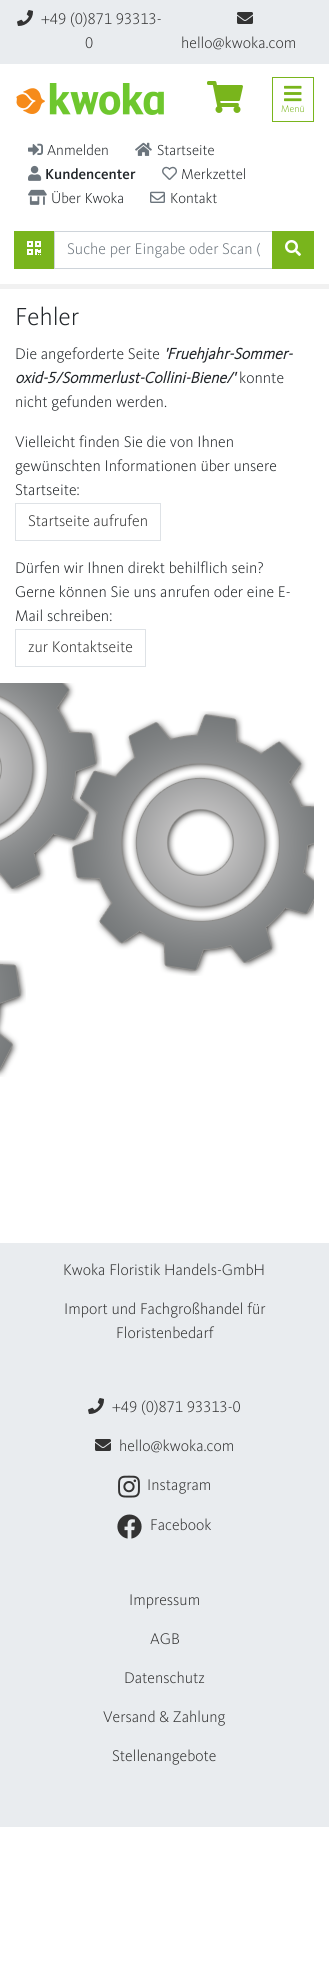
import math
import cairo



def draw_image(context, path, x, y, w, h):
    context.save()
    context.set_source_surface(cairo.ImageSurface.create_from_png(path), x, y)
    context.rectangle(x, y, w, h)
    context.fill()
    context.restore()


def draw(context):
    context.set_source_rgb(1, 1, 1)
    context.paint()
    context.set_source_rgb(233 / 255, 236 / 255, 239 / 255)
    context.rectangle(0, 0, 329, 64)
    context.fill()
    draw_image(context, "images/1.png", 17, 10, 16, 16)
    draw_image(context, "images/2.png", 237, 12, 16, 12)
    draw_image(context, "images/3.png", 16, 83, 148, 32)
    draw_image(context, "images/4.png", 207, 81, 36, 32)
    context.rectangle(272.5, 77.5, 41, 44)
    context.set_source_rgb(121 / 255, 181 / 255, 28 / 255)
    context.set_line_width(1)
    context.stroke()
    draw_image(context, "images/5.png", 284, 85, 18, 17)
    draw_image(context, "images/6.png", 28, 143, 15, 13)
    draw_image(context, "images/7.png", 135, 142, 17, 14)
    draw_image(context, "images/8.png", 28, 165, 14, 16)
    draw_image(context, "images/9.png", 162, 166, 15, 14)
    draw_image(context, "images/10.png", 28, 189, 19, 16)
    draw_image(context, "images/11.png", 150, 191, 15, 12)
    context.rectangle(14, 231, 40, 38)
    context.fill()
    draw_image(context, "images/12.png", 27, 241, 14, 14)
    context.rectangle(54.5, 231.5, 218, 37)
    context.set_source_rgb(206 / 255, 212 / 255, 218 / 255)
    context.stroke()
    context.set_source_rgb(121 / 255, 181 / 255, 28 / 255)
    context.rectangle(272, 231, 42, 38)
    context.fill()
    draw_image(context, "images/13.png", 285, 240, 16, 16)
    context.set_source_rgb(241 / 255, 241 / 255, 241 / 255)
    context.rectangle(0, 284, 329, 5)
    context.fill()
    context.rectangle(15.5, 503.5, 145, 37)
    context.set_source_rgb(222 / 255, 226 / 255, 230 / 255)
    context.stroke()
    context.rectangle(15.5, 629.5, 130, 37)
    context.stroke()
    draw_image(context, "images/14.png", 0, 683, 102, 211)
    draw_image(context, "images/15.png", 68, 711, 246, 265)
    draw_image(context, "images/16.png", 0, 960, 26, 117)
    context.set_source_rgb(233 / 255, 236 / 255, 239 / 255)
    context.rectangle(0, 1243, 329, 584)
    context.fill()
    draw_image(context, "images/1.png", 88, 1398, 16, 16)
    draw_image(context, "images/2.png", 95, 1439, 16, 12)
    draw_image(context, "images/17.png", 118, 1475, 22, 23)
    draw_image(context, "images/18.png", 117, 1514, 25, 25)
    context.select_font_face("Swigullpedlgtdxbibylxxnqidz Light")
    context.set_font_size(16)
    context.set_source_rgb(51 / 255, 51 / 255, 51 / 255)
    context.move_to(41, 24)
    context.show_text("+49 (0)871 93313-")
    context.move_to(85, 48)
    context.show_text("0")
    context.move_to(181, 48)
    context.show_text("hello@kwoka.com")
    context.set_font_size(10)
    context.set_source_rgb(121 / 255, 181 / 255, 28 / 255)
    context.move_to(281, 112)
    context.show_text("Menü")
    context.set_font_size(15)
    context.set_source_rgb(33 / 255, 37 / 255, 41 / 255)
    context.move_to(47, 155)
    context.show_text("Anmelden")
    context.move_to(157, 155)
    context.show_text("Startseite")
    context.select_font_face("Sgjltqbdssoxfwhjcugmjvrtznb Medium")
    context.move_to(45, 179)
    context.show_text("Kundencenter")
    context.select_font_face("Swigullpedlgtdxbibylxxnqidz Light")
    context.move_to(181, 179)
    context.show_text("Merkzettel")
    context.move_to(51, 203)
    context.show_text("Über Kwoka")
    context.move_to(170, 203)
    context.show_text("Kontakt")
    context.save()
    context.rectangle(67, 242, 193, 16)
    context.clip()
    context.set_font_size(16)
    context.set_source_rgb(108 / 255, 117 / 255, 125 / 255)
    context.move_to(67, 254)
    context.show_text("Suche per Eingabe oder Scan (")
    context.restore()
    context.set_font_size(25.5)
    context.move_to(15, 325)
    context.show_text("Fehler")
    context.set_font_size(16)
    context.move_to(15, 359)
    context.show_text("Die angeforderte Seite")
    context.select_font_face("Swigullpedlgtdxbibylxxnqidz", cairo.FontSlant.ITALIC, cairo.FontWeight.BOLD)
    context.move_to(164, 359)
    context.show_text("'Fruehjahr-Sommer-")
    context.move_to(15, 383)
    context.show_text("oxid-5/Sommerlust-Collini-Biene/'")
    context.select_font_face("Swigullpedlgtdxbibylxxnqidz Light")
    context.move_to(239, 383)
    context.show_text("konnte")
    context.move_to(15, 407)
    context.show_text("nicht gefunden werden.")
    context.move_to(15, 447)
    context.show_text("Vielleicht finden Sie die von Ihnen")
    context.move_to(15, 471)
    context.show_text("gewünschten Informationen über unsere")
    context.move_to(15, 495)
    context.show_text("Startseite:")
    context.set_source_rgb(51 / 255, 51 / 255, 51 / 255)
    context.move_to(28, 526)
    context.show_text("Startseite aufrufen")
    context.set_source_rgb(33 / 255, 37 / 255, 41 / 255)
    context.move_to(15, 573)
    context.show_text("Dürfen wir Ihnen direkt behilflich sein?")
    context.move_to(15, 597)
    context.show_text("Gerne können Sie uns anrufen oder eine E-")
    context.move_to(15, 621)
    context.show_text("Mail schreiben:")
    context.set_source_rgb(51 / 255, 51 / 255, 51 / 255)
    context.move_to(28, 652)
    context.show_text("zur Kontaktseite")
    context.move_to(63, 1275)
    context.show_text("Kwoka Floristik Handels-GmbH")
    context.move_to(64, 1314)
    context.show_text("Import und Fachgroßhandel für")
    context.move_to(116, 1338)
    context.show_text("Floristenbedarf")
    context.move_to(112, 1412)
    context.show_text("+49 (0)871 93313-0")
    context.move_to(119, 1451)
    context.show_text("hello@kwoka.com")
    context.move_to(147, 1490)
    context.show_text("Instagram")
    context.move_to(150, 1530)
    context.show_text("Facebook")
    context.move_to(129, 1605)
    context.show_text("Impressum")
    context.move_to(150, 1644)
    context.show_text("AGB")
    context.move_to(124, 1683)
    context.show_text("Datenschutz")
    context.move_to(103, 1722)
    context.show_text("Versand & Zahlung")
    context.move_to(112, 1761)
    context.show_text("Stellenangebote")


surface = cairo.ImageSurface(cairo.Format.RGB24, 329, 1962)
context = cairo.Context(surface)
options = cairo.FontOptions()
options.set_hint_metrics(cairo.HintMetrics.OFF)
options.set_hint_style(cairo.HintStyle.NONE)
context.set_font_options(options)
context.set_miter_limit(4)
draw(context)
surface.write_to_png("out.png")
